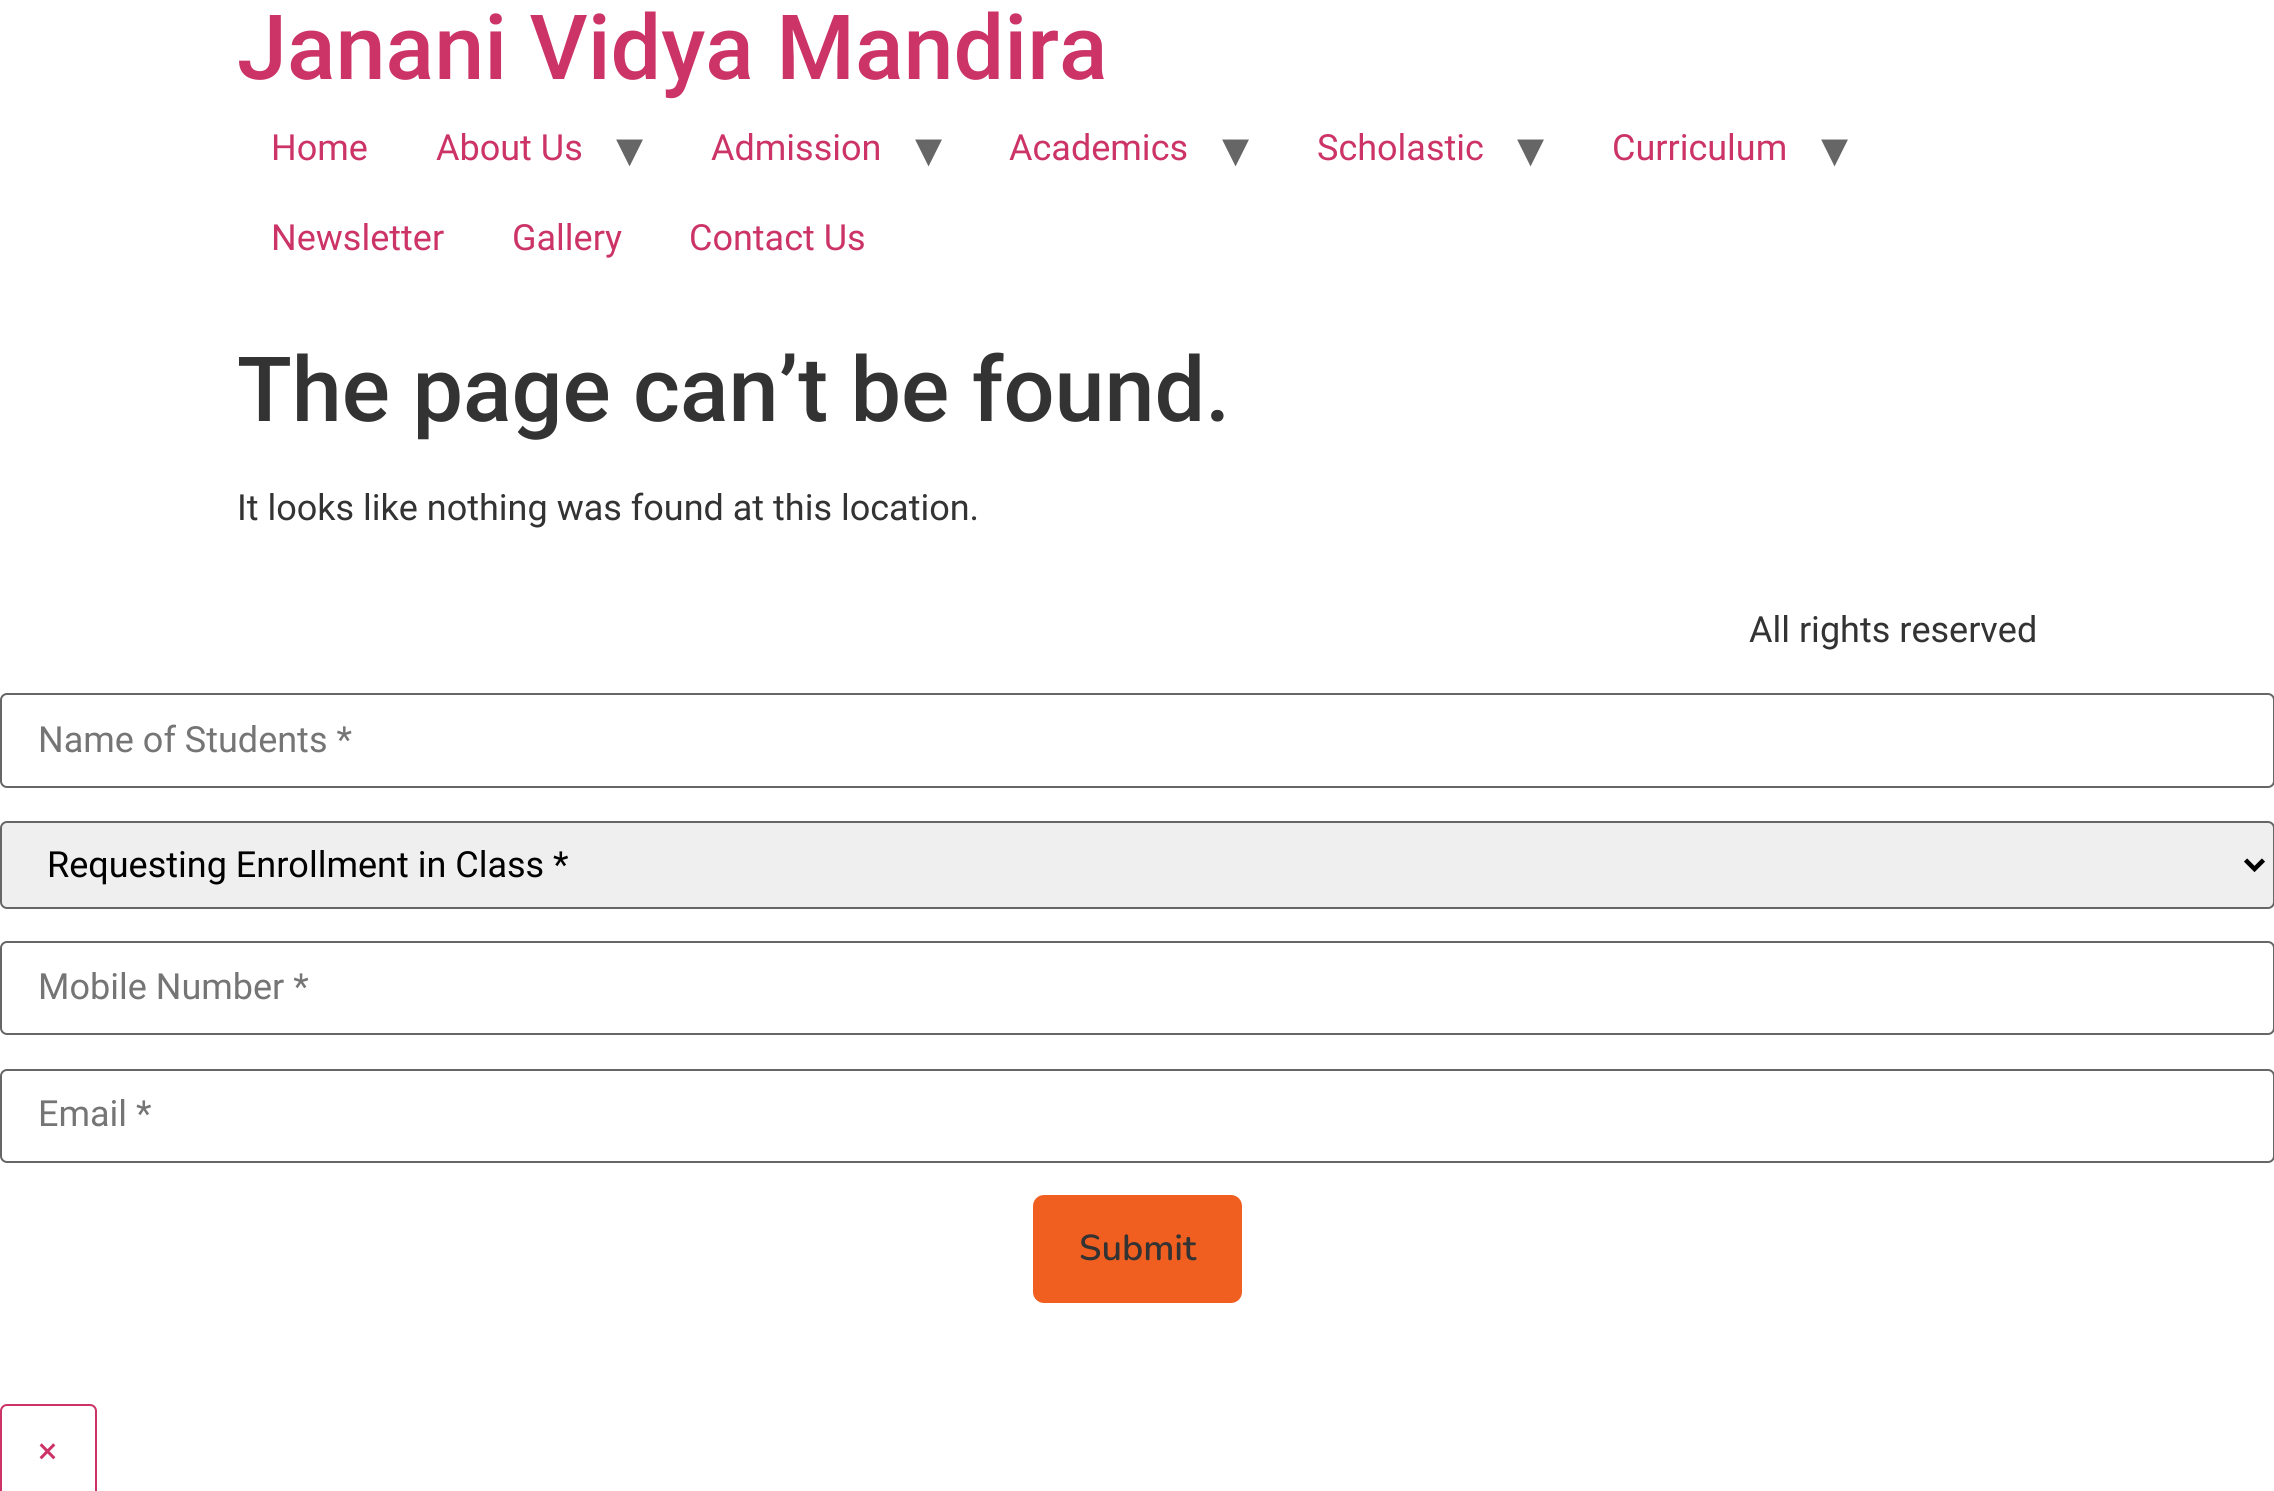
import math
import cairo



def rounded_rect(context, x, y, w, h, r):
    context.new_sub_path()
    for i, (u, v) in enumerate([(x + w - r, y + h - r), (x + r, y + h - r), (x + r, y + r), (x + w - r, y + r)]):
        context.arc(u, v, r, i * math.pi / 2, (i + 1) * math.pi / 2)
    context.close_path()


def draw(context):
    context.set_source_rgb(1, 1, 1)
    context.paint()
    rounded_rect(context, 1, 694, 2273, 93, 6)
    context.set_source_rgb(102 / 255, 102 / 255, 102 / 255)
    context.stroke()
    context.set_source_rgb(239 / 255, 239 / 255, 239 / 255)
    rounded_rect(context, 1, 822, 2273, 86, 6)
    context.fill_preserve()
    context.set_source_rgb(102 / 255, 102 / 255, 102 / 255)
    context.stroke()
    context.new_path()
    context.move_to(2245.5, 860)
    context.line_to(2254.5, 869)
    context.line_to(2263.5, 860)
    context.set_source_rgb(0, 0, 0)
    context.set_line_width(4.5)
    context.stroke()
    rounded_rect(context, 1, 942, 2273, 92, 6)
    context.set_source_rgb(102 / 255, 102 / 255, 102 / 255)
    context.set_line_width(2)
    context.stroke()
    rounded_rect(context, 1, 1070, 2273, 92, 6)
    context.stroke()
    context.set_source_rgb(241 / 255, 95 / 255, 32 / 255)
    rounded_rect(context, 1033, 1195, 209, 108, 11)
    context.fill()
    rounded_rect(context, 1, 1405, 95, 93, 6)
    context.set_source_rgb(204 / 255, 51 / 255, 102 / 255)
    context.stroke()
    context.select_font_face("Roboto Medium")
    context.set_font_size(90)
    context.move_to(237, 79)
    context.show_text("Janani Vidya Mandira")
    context.select_font_face("Roboto")
    context.set_font_size(36)
    context.move_to(271, 160)
    context.show_text("Home")
    context.move_to(436, 160)
    context.show_text("About Us")
    context.select_font_face("DejaVu Sans")
    context.set_font_size(54)
    context.set_source_rgb(102 / 255, 102 / 255, 102 / 255)
    context.move_to(616, 167)
    context.show_text("▾")
    context.select_font_face("Roboto")
    context.set_font_size(36)
    context.set_source_rgb(204 / 255, 51 / 255, 102 / 255)
    context.move_to(711, 160)
    context.show_text("Admission")
    context.select_font_face("DejaVu Sans")
    context.set_font_size(54)
    context.set_source_rgb(102 / 255, 102 / 255, 102 / 255)
    context.move_to(915, 167)
    context.show_text("▾")
    context.select_font_face("Roboto")
    context.set_font_size(36)
    context.set_source_rgb(204 / 255, 51 / 255, 102 / 255)
    context.move_to(1009, 160)
    context.show_text("Academics")
    context.select_font_face("DejaVu Sans")
    context.set_font_size(54)
    context.set_source_rgb(102 / 255, 102 / 255, 102 / 255)
    context.move_to(1222, 167)
    context.show_text("▾")
    context.select_font_face("Roboto")
    context.set_font_size(36)
    context.set_source_rgb(204 / 255, 51 / 255, 102 / 255)
    context.move_to(1317, 160)
    context.show_text("Scholastic")
    context.select_font_face("DejaVu Sans")
    context.set_font_size(54)
    context.set_source_rgb(102 / 255, 102 / 255, 102 / 255)
    context.move_to(1517, 167)
    context.show_text("▾")
    context.select_font_face("Roboto")
    context.set_font_size(36)
    context.set_source_rgb(204 / 255, 51 / 255, 102 / 255)
    context.move_to(1612, 160)
    context.show_text("Curriculum")
    context.select_font_face("DejaVu Sans")
    context.set_font_size(54)
    context.set_source_rgb(102 / 255, 102 / 255, 102 / 255)
    context.move_to(1821, 167)
    context.show_text("▾")
    context.select_font_face("Roboto")
    context.set_font_size(36)
    context.set_source_rgb(204 / 255, 51 / 255, 102 / 255)
    context.move_to(271, 250)
    context.show_text("Newsletter")
    context.move_to(512, 250)
    context.show_text("Gallery")
    context.move_to(689, 250)
    context.show_text("Contact Us")
    context.select_font_face("Roboto Medium")
    context.set_font_size(90)
    context.set_source_rgb(51 / 255, 51 / 255, 51 / 255)
    context.move_to(237, 421)
    context.show_text("The page can’t be found.")
    context.select_font_face("Roboto")
    context.set_font_size(36)
    context.move_to(237, 520)
    context.show_text("It looks like nothing was found at this location.")
    context.move_to(1749, 642)
    context.show_text("All rights reserved")
    context.set_source_rgb(117 / 255, 117 / 255, 117 / 255)
    context.move_to(38, 752)
    context.show_text("Name of Students *")
    context.set_source_rgb(0, 0, 0)
    context.move_to(47, 877)
    context.show_text("Requesting Enrollment in Class *")
    context.set_source_rgb(117 / 255, 117 / 255, 117 / 255)
    context.move_to(38, 999)
    context.show_text("Mobile Number *")
    context.move_to(38, 1126)
    context.show_text("Email *")
    context.select_font_face("Nunito SemiBold")
    context.set_source_rgb(51 / 255, 51 / 255, 51 / 255)
    context.move_to(1079, 1260)
    context.show_text("Submit")
    context.select_font_face("Roboto")
    context.set_source_rgb(204 / 255, 51 / 255, 102 / 255)
    context.move_to(38, 1463)
    context.show_text("×")


surface = cairo.ImageSurface(cairo.Format.RGB24, 2274, 1491)
context = cairo.Context(surface)
options = cairo.FontOptions()
options.set_hint_metrics(cairo.HintMetrics.OFF)
options.set_hint_style(cairo.HintStyle.NONE)
context.set_font_options(options)
context.set_miter_limit(4)
draw(context)
surface.write_to_png("out.png")
